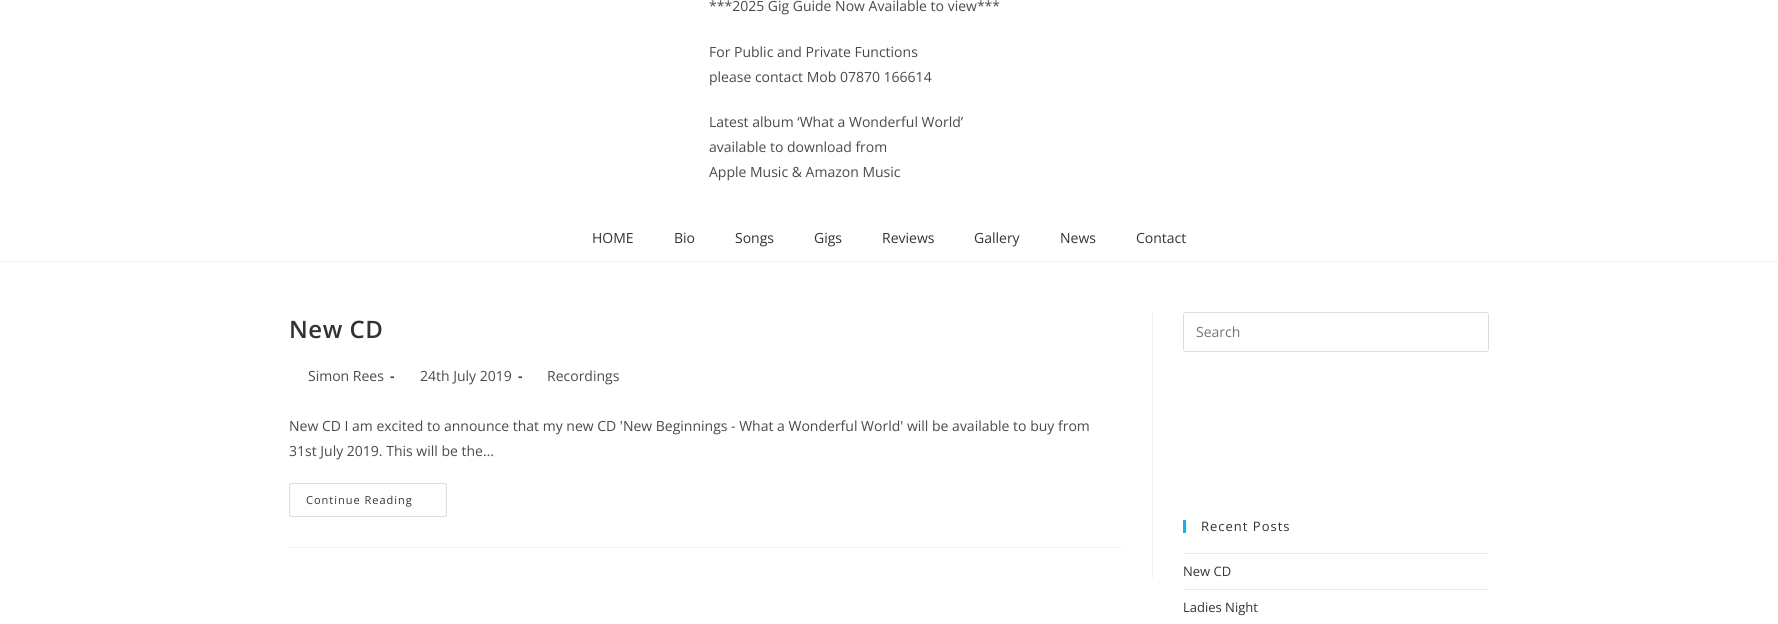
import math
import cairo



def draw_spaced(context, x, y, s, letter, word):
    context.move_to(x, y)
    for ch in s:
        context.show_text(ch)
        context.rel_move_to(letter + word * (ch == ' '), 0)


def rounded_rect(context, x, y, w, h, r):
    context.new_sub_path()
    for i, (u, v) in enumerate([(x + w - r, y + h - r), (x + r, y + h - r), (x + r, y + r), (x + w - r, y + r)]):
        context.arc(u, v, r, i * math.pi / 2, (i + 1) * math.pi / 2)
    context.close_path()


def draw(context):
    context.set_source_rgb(1, 1, 1)
    context.paint()
    context.set_source_rgb(241 / 255, 241 / 255, 241 / 255)
    context.rectangle(0, 261, 1778, 1)
    context.fill()
    context.rectangle(1152, 312, 1, 266)
    context.fill()
    context.rectangle(289, 547, 833, 1)
    context.fill()
    rounded_rect(context, 289.5, 483.5, 157, 33, 1.5)
    context.set_source_rgb(221 / 255, 221 / 255, 221 / 255)
    context.set_line_width(1)
    context.stroke()
    rounded_rect(context, 1183.5, 312.5, 305, 39, 2.5)
    context.stroke()
    context.set_source_rgb(19 / 255, 175 / 255, 240 / 255)
    context.rectangle(1183, 520, 3, 13)
    context.fill()
    context.set_source_rgb(233 / 255, 233 / 255, 233 / 255)
    context.rectangle(1183, 553, 306, 1)
    context.fill()
    context.rectangle(1183, 589, 306, 1)
    context.fill()
    context.select_font_face("Open Sans")
    context.set_font_size(14)
    context.set_source_rgb(74 / 255, 74 / 255, 74 / 255)
    context.move_to(709, 11)
    context.show_text("***2025 Gig Guide Now Available to view***")
    context.move_to(709, 57)
    context.show_text("For Public and Private Functions")
    context.move_to(709, 82)
    context.show_text("please contact Mob 07870 166614")
    context.move_to(709, 127)
    context.show_text("Latest album ‘What a Wonderful World’")
    context.move_to(709, 152)
    context.show_text("available to download from")
    context.move_to(709, 177)
    context.show_text("Apple Music & Amazon Music")
    context.set_source_rgb(51 / 255, 51 / 255, 51 / 255)
    context.move_to(592, 243)
    context.show_text("HOME")
    context.move_to(674, 243)
    context.show_text("Bio")
    context.move_to(735, 243)
    context.show_text("Songs")
    context.move_to(814, 243)
    context.show_text("Gigs")
    context.move_to(882, 243)
    context.show_text("Reviews")
    context.move_to(974, 243)
    context.show_text("Gallery")
    context.move_to(1060, 243)
    context.show_text("News")
    context.move_to(1136, 243)
    context.show_text("Contact")
    context.select_font_face("Open Sans SemiBold")
    context.set_font_size(24)
    draw_spaced(context, 289, 338, "New CD", 0.5, 0)
    context.select_font_face("Open Sans")
    context.set_font_size(14)
    context.set_source_rgb(74 / 255, 74 / 255, 74 / 255)
    context.move_to(308, 381)
    context.show_text("Simon Rees")
    context.select_font_face("Open Sans", cairo.FontSlant.NORMAL, cairo.FontWeight.BOLD)
    context.move_to(390, 381)
    context.show_text("-")
    context.select_font_face("Open Sans")
    context.move_to(420, 381)
    context.show_text("24th July 2019")
    context.select_font_face("Open Sans", cairo.FontSlant.NORMAL, cairo.FontWeight.BOLD)
    context.move_to(518, 381)
    context.show_text("-")
    context.select_font_face("Open Sans")
    context.move_to(547, 381)
    context.show_text("Recordings")
    context.move_to(289, 431)
    context.show_text("New CD I am excited to announce that my new CD 'New Beginnings - What a Wonderful World' will be available to buy from")
    context.move_to(289, 456)
    context.show_text("31st July 2019. This will be the…")
    context.set_font_size(11)
    context.set_source_rgb(51 / 255, 51 / 255, 51 / 255)
    draw_spaced(context, 306, 504, "Continue Reading", 1, 0)
    context.set_font_size(14)
    context.set_source_rgb(117 / 255, 117 / 255, 117 / 255)
    context.move_to(1196, 337)
    context.show_text("Search")
    context.set_font_size(13)
    context.set_source_rgb(51 / 255, 51 / 255, 51 / 255)
    draw_spaced(context, 1201, 531, "Recent Posts", 1, 0)
    context.move_to(1183, 576)
    context.show_text("New CD")
    context.move_to(1183, 612)
    context.show_text("Ladies Night")


surface = cairo.ImageSurface(cairo.Format.RGB24, 1778, 624)
context = cairo.Context(surface)
options = cairo.FontOptions()
options.set_hint_metrics(cairo.HintMetrics.OFF)
options.set_hint_style(cairo.HintStyle.NONE)
context.set_font_options(options)
context.set_miter_limit(4)
draw(context)
surface.write_to_png("out.png")
